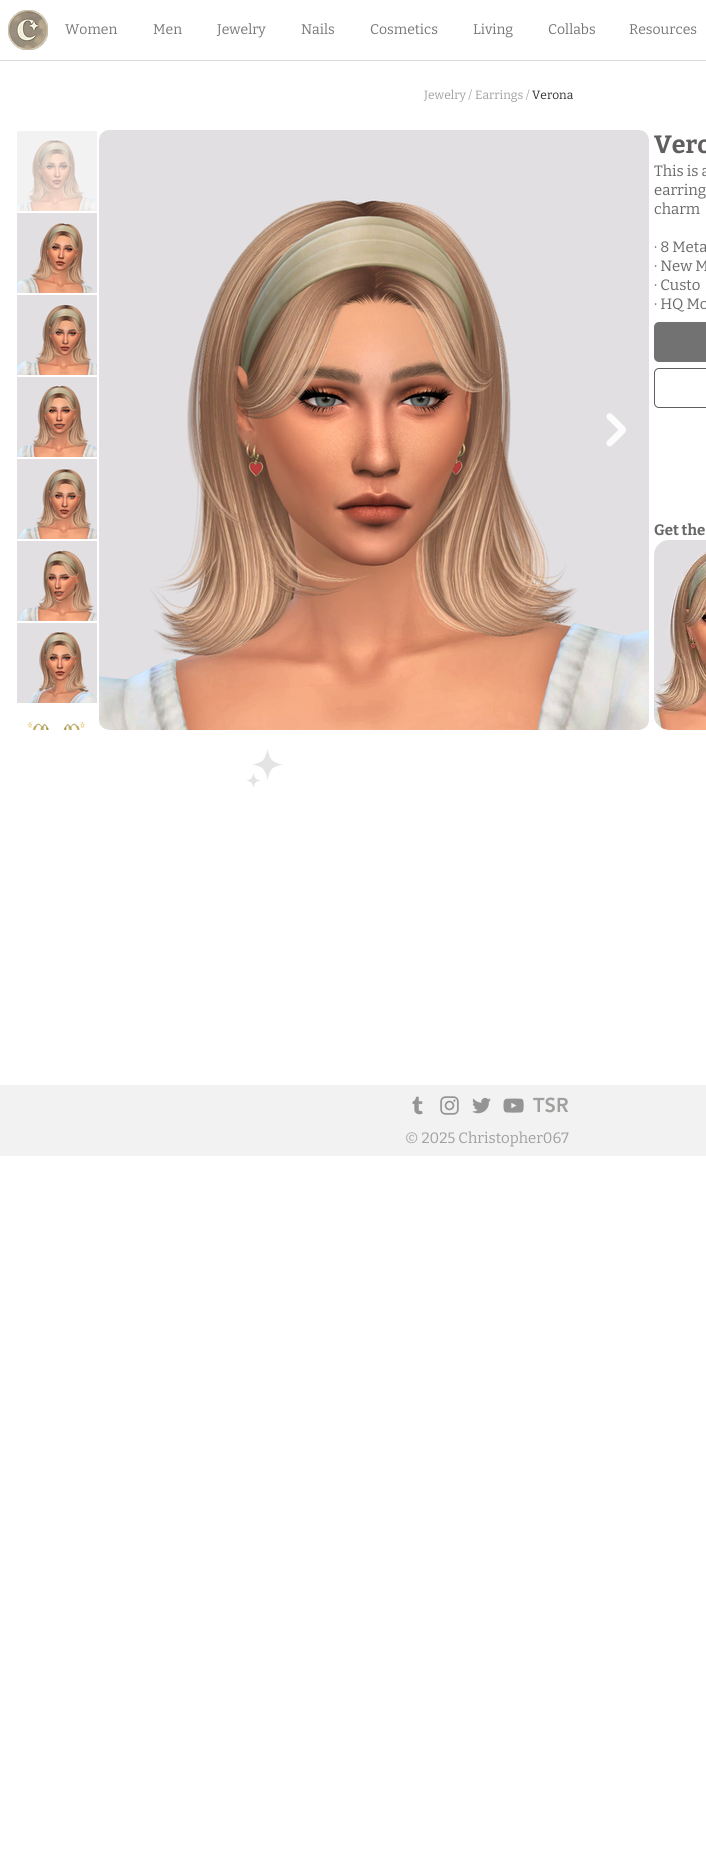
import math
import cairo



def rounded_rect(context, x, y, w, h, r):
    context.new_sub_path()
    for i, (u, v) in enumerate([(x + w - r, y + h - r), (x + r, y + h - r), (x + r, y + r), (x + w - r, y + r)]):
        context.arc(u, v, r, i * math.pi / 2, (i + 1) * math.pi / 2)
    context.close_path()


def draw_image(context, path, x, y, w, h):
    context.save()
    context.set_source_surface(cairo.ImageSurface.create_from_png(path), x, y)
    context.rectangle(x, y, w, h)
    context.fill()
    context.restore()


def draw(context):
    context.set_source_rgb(1, 1, 1)
    context.paint()
    draw_image(context, "images/1.png", 8, 10, 40, 40)
    context.set_source_rgb(217 / 255, 217 / 255, 217 / 255)
    context.rectangle(0, 60, 706, 1)
    context.fill()
    draw_image(context, "images/2.png", 17, 131, 80, 80)
    draw_image(context, "images/3.png", 17, 213, 80, 80)
    draw_image(context, "images/4.png", 17, 295, 80, 80)
    draw_image(context, "images/5.png", 17, 377, 80, 80)
    draw_image(context, "images/6.png", 17, 459, 80, 80)
    draw_image(context, "images/7.png", 17, 541, 80, 80)
    draw_image(context, "images/8.png", 17, 623, 80, 80)
    draw_image(context, "images/9.png", 27, 721, 58, 9)
    draw_image(context, "images/10.png", 99, 130, 550, 600)
    draw_image(context, "images/11.png", 606, 413, 20, 34)
    context.set_source_rgb(114 / 255, 114 / 255, 114 / 255)
    rounded_rect(context, 654, 322, 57, 40, 5)
    context.fill()
    rounded_rect(context, 654.5, 368.5, 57, 39, 4.5)
    context.set_source_rgb(96 / 255, 94 / 255, 94 / 255)
    context.set_line_width(1)
    context.stroke()
    draw_image(context, "images/12.png", 654, 540, 52, 190)
    draw_image(context, "images/13.png", 252, 749, 31, 31)
    draw_image(context, "images/14.png", 246, 773, 15, 15)
    context.set_source_rgb(242 / 255, 242 / 255, 242 / 255)
    context.rectangle(0, 1085, 706, 71)
    context.fill()
    draw_image(context, "images/15.png", 412, 1096, 11, 19)
    draw_image(context, "images/16.png", 440, 1096, 19, 19)
    draw_image(context, "images/17.png", 472, 1097, 19, 17)
    draw_image(context, "images/18.png", 503, 1098, 21, 15)
    context.select_font_face("Bitter")
    context.set_font_size(14)
    context.set_source_rgb(118 / 255, 118 / 255, 118 / 255)
    context.move_to(65, 34)
    context.show_text("Women")
    context.move_to(153, 34)
    context.show_text("Men")
    context.move_to(217, 34)
    context.show_text("Jewelry")
    context.move_to(301, 34)
    context.show_text("Nails")
    context.move_to(370, 34)
    context.show_text("Cosmetics")
    context.move_to(473, 34)
    context.show_text("Living")
    context.move_to(548, 34)
    context.show_text("Collabs")
    context.move_to(629, 34)
    context.show_text("Resources")
    context.set_font_size(12)
    context.set_source_rgb(160 / 255, 160 / 255, 159 / 255)
    context.move_to(424, 99)
    context.show_text("Jewelry /")
    context.move_to(475, 99)
    context.show_text("Earrings /")
    context.set_source_rgb(47 / 255, 46 / 255, 46 / 255)
    context.move_to(532, 99)
    context.show_text("Verona")
    context.select_font_face("Bitter", cairo.FontSlant.NORMAL, cairo.FontWeight.BOLD)
    context.set_font_size(25)
    context.set_source_rgb(96 / 255, 94 / 255, 94 / 255)
    context.move_to(654, 153)
    context.show_text("Vero")
    context.select_font_face("Bitter")
    context.set_font_size(15)
    context.set_source_rgb(104 / 255, 104 / 255, 104 / 255)
    context.move_to(654, 176)
    context.show_text("This is a")
    context.move_to(654, 195)
    context.show_text("earring")
    context.move_to(654, 214)
    context.show_text("charm")
    context.move_to(654, 252)
    context.show_text("· 8 Meta")
    context.move_to(654, 271)
    context.show_text("· New M")
    context.move_to(654, 290)
    context.show_text("· Custo")
    context.move_to(654, 309)
    context.show_text("· HQ Mo")
    context.select_font_face("Bitter", cairo.FontSlant.NORMAL, cairo.FontWeight.BOLD)
    context.move_to(654, 535)
    context.show_text("Get the")
    context.select_font_face("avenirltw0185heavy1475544 Black")
    context.set_font_size(20)
    context.set_source_rgb(160 / 255, 160 / 255, 159 / 255)
    context.move_to(533, 1112)
    context.show_text("TSR")
    context.select_font_face("Bitter")
    context.set_font_size(15)
    context.move_to(405, 1143)
    context.show_text("© 2025 Christopher067")


surface = cairo.ImageSurface(cairo.Format.RGB24, 706, 1864)
context = cairo.Context(surface)
options = cairo.FontOptions()
options.set_hint_metrics(cairo.HintMetrics.OFF)
options.set_hint_style(cairo.HintStyle.NONE)
context.set_font_options(options)
context.set_miter_limit(4)
draw(context)
surface.write_to_png("out.png")
